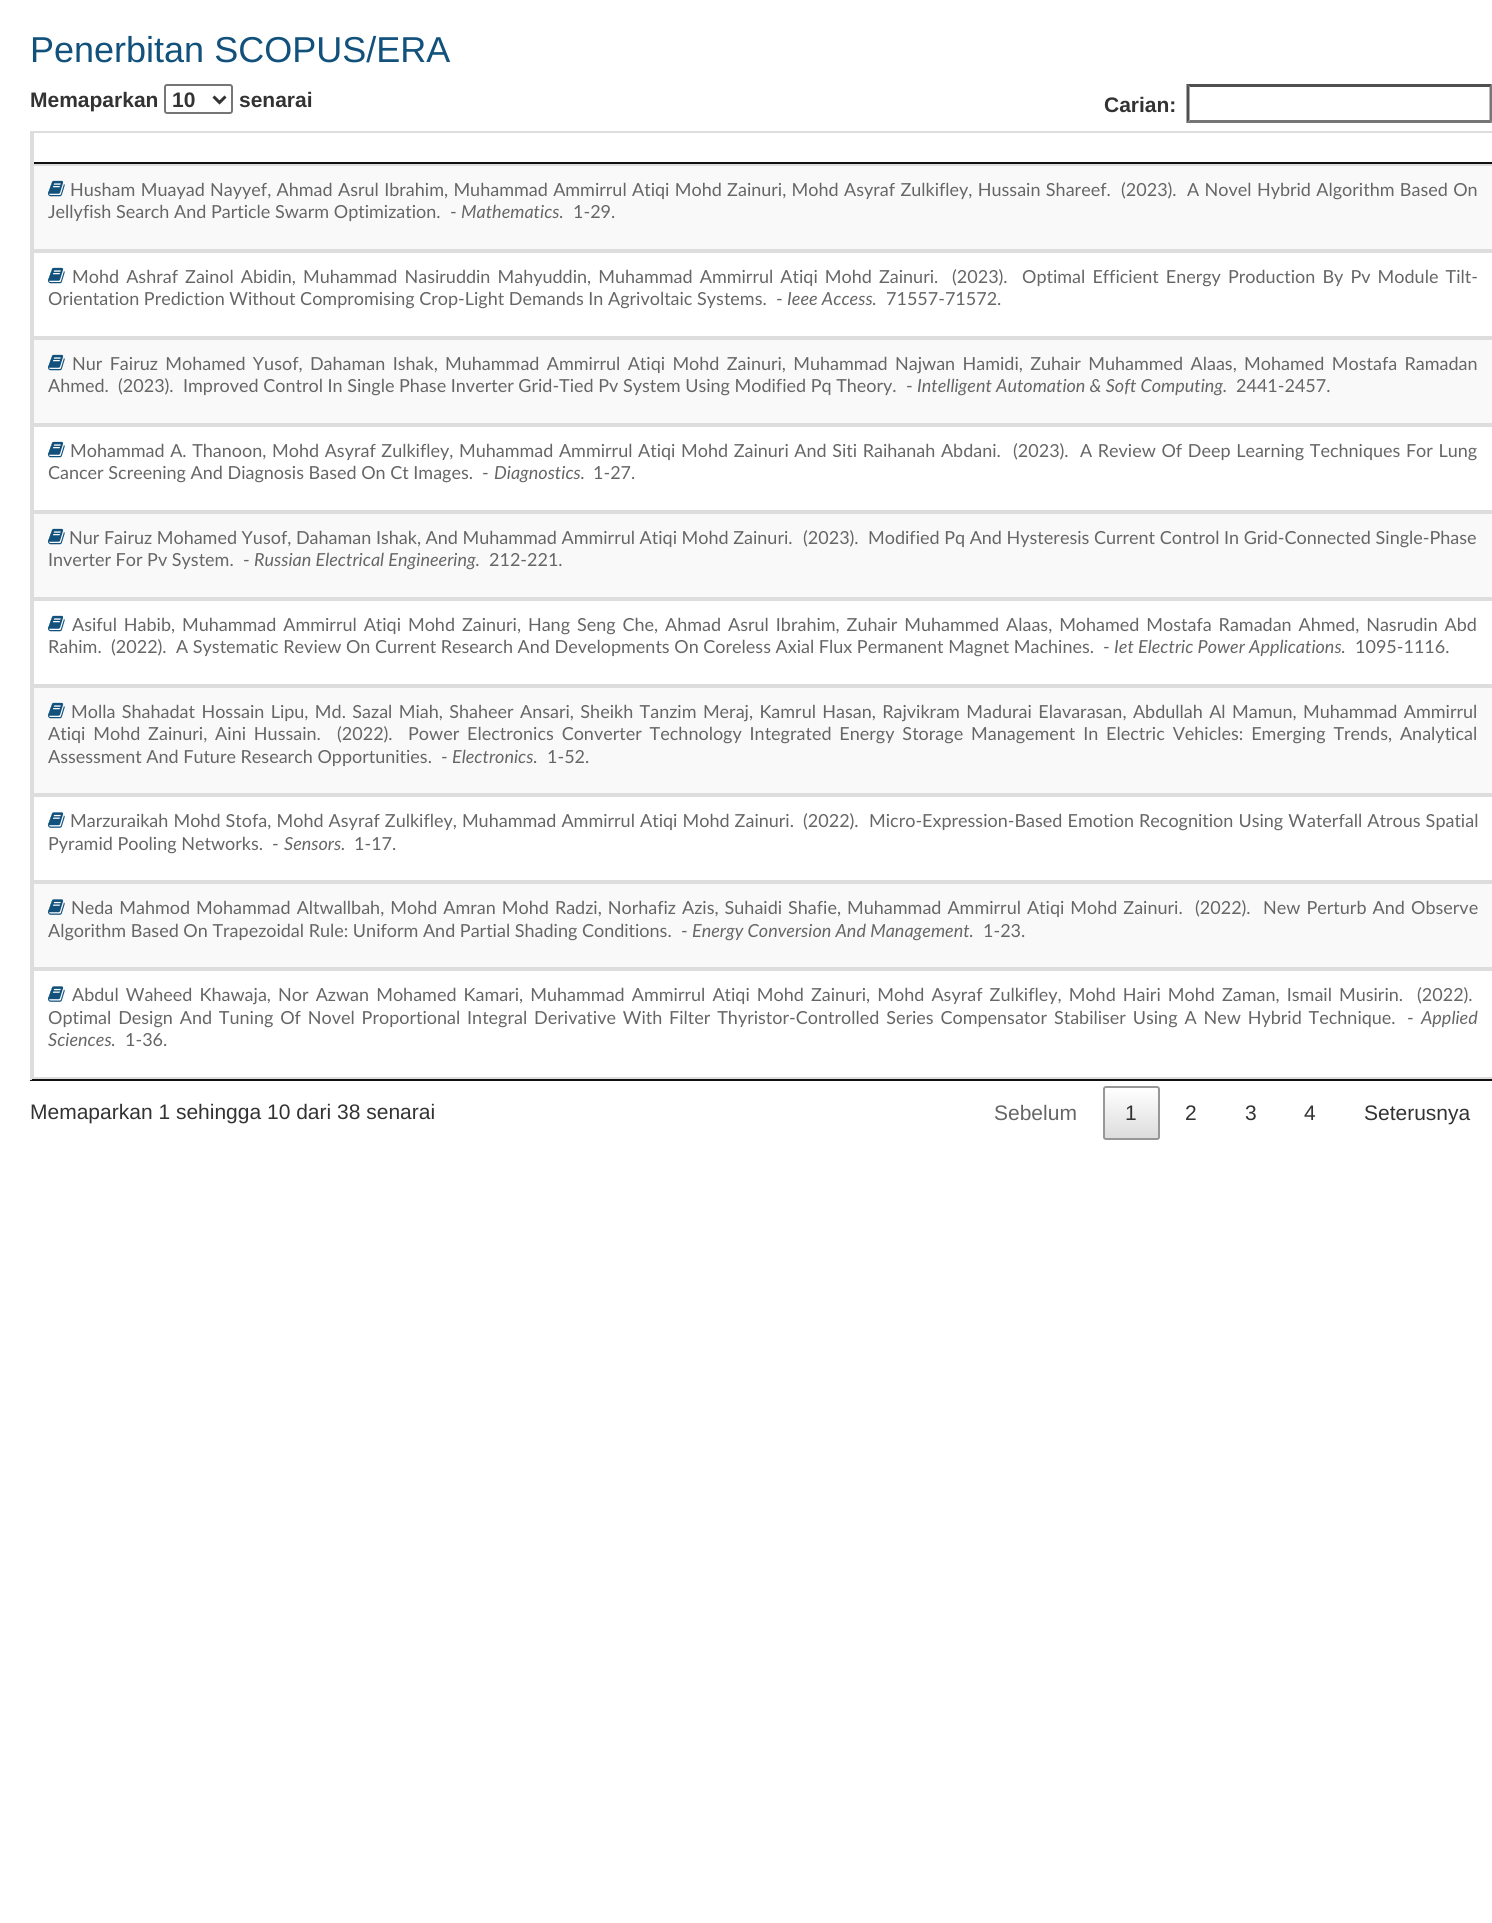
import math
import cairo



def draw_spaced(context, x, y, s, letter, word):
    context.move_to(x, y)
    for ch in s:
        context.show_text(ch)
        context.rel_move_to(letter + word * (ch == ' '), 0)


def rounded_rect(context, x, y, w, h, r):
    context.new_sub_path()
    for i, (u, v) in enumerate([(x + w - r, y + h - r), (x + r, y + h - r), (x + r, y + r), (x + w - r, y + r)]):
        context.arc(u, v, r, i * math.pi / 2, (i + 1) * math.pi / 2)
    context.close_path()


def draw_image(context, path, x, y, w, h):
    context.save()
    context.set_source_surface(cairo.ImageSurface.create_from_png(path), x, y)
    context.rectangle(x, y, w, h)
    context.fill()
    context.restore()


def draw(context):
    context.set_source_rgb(1, 1, 1)
    context.paint()
    rounded_rect(context, 165, 85, 67, 28, 2)
    context.set_source_rgb(118 / 255, 118 / 255, 118 / 255)
    context.stroke()
    context.new_path()
    context.move_to(213.5, 96.5)
    context.line_to(219.5, 102.5)
    context.line_to(225.5, 96.5)
    context.set_source_rgb(51 / 255, 51 / 255, 51 / 255)
    context.set_line_width(3)
    context.stroke()
    context.set_source_rgb(79 / 255, 79 / 255, 79 / 255)
    context.new_path()
    context.move_to(1186, 84)
    context.line_to(1492, 84)
    context.line_to(1490, 87)
    context.line_to(1190, 87)
    context.close_path()
    context.fill()
    context.set_source_rgb(118 / 255, 118 / 255, 118 / 255)
    context.new_path()
    context.move_to(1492.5, 84)
    context.line_to(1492.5, 123)
    context.line_to(1489.5, 120)
    context.line_to(1489.5, 87)
    context.close_path()
    context.fill()
    context.new_path()
    context.move_to(1492, 123)
    context.line_to(1186, 123)
    context.line_to(1190, 120)
    context.line_to(1490, 120)
    context.close_path()
    context.fill()
    context.set_source_rgb(79 / 255, 79 / 255, 79 / 255)
    context.new_path()
    context.move_to(1186.5, 123)
    context.line_to(1186.5, 84)
    context.line_to(1189.5, 87)
    context.line_to(1189.5, 120)
    context.close_path()
    context.fill()
    context.set_source_rgb(221 / 255, 221 / 255, 221 / 255)
    context.rectangle(30, 131, 1462, 2)
    context.fill()
    context.set_source_rgb(17 / 255, 17 / 255, 17 / 255)
    context.rectangle(30, 1079, 1462, 2)
    context.fill()
    context.set_source_rgb(221 / 255, 221 / 255, 221 / 255)
    context.rectangle(30, 131, 2, 949)
    context.fill()
    context.set_source_rgb(17 / 255, 17 / 255, 17 / 255)
    context.rectangle(32, 162, 1460, 2)
    context.fill()
    context.set_source_rgb(221 / 255, 221 / 255, 221 / 255)
    context.rectangle(32, 132, 2, 32)
    context.fill()
    context.set_source_rgb(249 / 255, 249 / 255, 249 / 255)
    context.rectangle(33, 165, 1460, 85)
    context.fill_preserve()
    context.set_source_rgb(221 / 255, 221 / 255, 221 / 255)
    context.set_line_width(2)
    context.stroke()
    draw_image(context, "images/1.png", 48, 180, 17, 17)
    context.rectangle(33, 252, 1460, 85)
    context.stroke()
    draw_image(context, "images/2.png", 48, 267, 17, 17)
    context.set_source_rgb(249 / 255, 249 / 255, 249 / 255)
    context.rectangle(33, 339, 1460, 85)
    context.fill_preserve()
    context.set_source_rgb(221 / 255, 221 / 255, 221 / 255)
    context.stroke()
    draw_image(context, "images/1.png", 48, 354, 17, 17)
    context.rectangle(33, 426, 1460, 85)
    context.stroke()
    draw_image(context, "images/2.png", 48, 441, 17, 17)
    context.set_source_rgb(249 / 255, 249 / 255, 249 / 255)
    context.rectangle(33, 513, 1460, 85)
    context.fill_preserve()
    context.set_source_rgb(221 / 255, 221 / 255, 221 / 255)
    context.stroke()
    draw_image(context, "images/1.png", 48, 528, 17, 17)
    context.rectangle(33, 600, 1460, 85)
    context.stroke()
    draw_image(context, "images/2.png", 48, 615, 17, 17)
    context.set_source_rgb(249 / 255, 249 / 255, 249 / 255)
    context.rectangle(33, 687, 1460, 107)
    context.fill_preserve()
    context.set_source_rgb(221 / 255, 221 / 255, 221 / 255)
    context.stroke()
    draw_image(context, "images/1.png", 48, 702, 17, 17)
    context.rectangle(33, 796, 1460, 85)
    context.stroke()
    draw_image(context, "images/3.png", 48, 812, 17, 16)
    context.set_source_rgb(249 / 255, 249 / 255, 249 / 255)
    context.rectangle(33, 883, 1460, 85)
    context.fill_preserve()
    context.set_source_rgb(221 / 255, 221 / 255, 221 / 255)
    context.stroke()
    draw_image(context, "images/4.png", 48, 899, 17, 16)
    context.rectangle(33, 970, 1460, 108)
    context.stroke()
    draw_image(context, "images/3.png", 48, 986, 17, 16)
    context.save()
    rounded_rect(context, 1103, 1086, 57, 54, 3)
    context.clip()
    gradient = cairo.LinearGradient(1131, 1088, 1131, 1139)
    gradient.add_color_stop_rgba(0, 1, 1, 1, 1)
    gradient.add_color_stop_rgba(1, 220 / 255, 220 / 255, 220 / 255, 1)
    context.set_source(gradient)
    context.rectangle(1103, 1088, 57, 51)
    context.fill()
    context.restore()
    rounded_rect(context, 1104, 1087, 55, 52, 2)
    context.set_source_rgb(151 / 255, 151 / 255, 151 / 255)
    context.stroke()
    context.select_font_face("Liberation Sans")
    context.set_font_size(36)
    context.set_source_rgb(17 / 255, 81 / 255, 124 / 255)
    context.move_to(30, 62)
    context.show_text("Penerbitan SCOPUS/ERA")
    context.select_font_face("Liberation Sans", cairo.FontSlant.NORMAL, cairo.FontWeight.BOLD)
    context.set_font_size(21)
    context.set_source_rgb(51 / 255, 51 / 255, 51 / 255)
    context.move_to(30, 107)
    context.show_text("Memaparkan")
    context.move_to(172, 107)
    context.show_text("10")
    context.move_to(239, 107)
    context.show_text("senarai")
    context.move_to(1104, 112)
    context.show_text("Carian:")
    context.select_font_face("Lato")
    context.set_font_size(18)
    context.set_source_rgb(102 / 255, 102 / 255, 102 / 255)
    draw_spaced(context, 70, 196, "Husham Muayad Nayyef, Ahmad Asrul Ibrahim, Muhammad Ammirrul Atiqi Mohd Zainuri, Mohd Asyraf Zulkifley, Hussain Shareef.", 0, 0.75)
    context.move_to(1121, 196)
    context.show_text("(2023).")
    draw_spaced(context, 1187, 196, "A Novel Hybrid Algorithm Based On", 0, 0.75)
    context.move_to(48, 218)
    context.show_text("Jellyfish Search And Particle Swarm Optimization.")
    context.move_to(450, 218)
    context.show_text("-")
    context.select_font_face("Lato", cairo.FontSlant.ITALIC)
    context.move_to(461, 218)
    context.show_text("Mathematics.")
    context.select_font_face("Lato")
    context.move_to(573, 218)
    context.show_text("1-29.")
    draw_spaced(context, 72, 283, "Mohd Ashraf Zainol Abidin, Muhammad Nasiruddin Mahyuddin, Muhammad Ammirrul Atiqi Mohd Zainuri.", 0, 2.5)
    context.move_to(952, 283)
    context.show_text("(2023).")
    draw_spaced(context, 1022, 283, "Optimal Efficient Energy Production By Pv Module Tilt-", 0, 2.5)
    context.move_to(48, 305)
    context.show_text("Orientation Prediction Without Compromising Crop-Light Demands In Agrivoltaic Systems.")
    context.move_to(776, 305)
    context.show_text("-")
    context.select_font_face("Lato", cairo.FontSlant.ITALIC)
    context.move_to(787, 305)
    context.show_text("Ieee Access.")
    context.select_font_face("Lato")
    context.move_to(886, 305)
    context.show_text("71557-71572.")
    draw_spaced(context, 72, 370, "Nur Fairuz Mohamed Yusof, Dahaman Ishak, Muhammad Ammirrul Atiqi Mohd Zainuri, Muhammad Najwan Hamidi, Zuhair Muhammed Alaas, Mohamed Mostafa Ramadan", 0, 2.75)
    context.move_to(48, 392)
    context.show_text("Ahmed.")
    context.move_to(118, 392)
    context.show_text("(2023).")
    context.move_to(183, 392)
    context.show_text("Improved Control In Single Phase Inverter Grid-Tied Pv System Using Modified Pq Theory.")
    context.move_to(906, 392)
    context.show_text("-")
    context.select_font_face("Lato", cairo.FontSlant.ITALIC)
    context.move_to(917, 392)
    context.show_text("Intelligent Automation & Soft Computing.")
    context.select_font_face("Lato")
    context.move_to(1236, 392)
    context.show_text("2441-2457.")
    draw_spaced(context, 70, 457, "Mohammad A. Thanoon, Mohd Asyraf Zulkifley, Muhammad Ammirrul Atiqi Mohd Zainuri And Siti Raihanah Abdani.", 0, 1)
    context.move_to(1013, 457)
    context.show_text("(2023).")
    draw_spaced(context, 1080, 457, "A Review Of Deep Learning Techniques For Lung", 0, 1)
    context.move_to(48, 479)
    context.show_text("Cancer Screening And Diagnosis Based On Ct Images.")
    context.move_to(482, 479)
    context.show_text("-")
    context.select_font_face("Lato", cairo.FontSlant.ITALIC)
    context.move_to(494, 479)
    context.show_text("Diagnostics.")
    context.select_font_face("Lato")
    context.move_to(593, 479)
    context.show_text("1-27.")
    context.move_to(69, 544)
    context.show_text("Nur Fairuz Mohamed Yusof, Dahaman Ishak, And Muhammad Ammirrul Atiqi Mohd Zainuri.")
    context.move_to(803, 544)
    context.show_text("(2023).")
    context.move_to(868, 544)
    context.show_text("Modified Pq And Hysteresis Current Control In Grid-Connected Single-Phase")
    context.move_to(48, 566)
    context.show_text("Inverter For Pv System.")
    context.move_to(243, 566)
    context.show_text("-")
    context.select_font_face("Lato", cairo.FontSlant.ITALIC)
    context.move_to(254, 566)
    context.show_text("Russian Electrical Engineering.")
    context.select_font_face("Lato")
    context.move_to(489, 566)
    context.show_text("212-221.")
    draw_spaced(context, 72, 631, "Asiful Habib, Muhammad Ammirrul Atiqi Mohd Zainuri, Hang Seng Che, Ahmad Asrul Ibrahim, Zuhair Muhammed Alaas, Mohamed Mostafa Ramadan Ahmed, Nasrudin Abd", 0, 2.3)
    context.move_to(48, 653)
    context.show_text("Rahim.")
    context.move_to(111, 653)
    context.show_text("(2022).")
    context.move_to(176, 653)
    context.show_text("A Systematic Review On Current Research And Developments On Coreless Axial Flux Permanent Magnet Machines.")
    context.move_to(1103, 653)
    context.show_text("-")
    context.select_font_face("Lato", cairo.FontSlant.ITALIC)
    context.move_to(1114, 653)
    context.show_text("Iet Electric Power Applications.")
    context.select_font_face("Lato")
    context.move_to(1355, 653)
    context.show_text("1095-1116.")
    draw_spaced(context, 71, 718, "Molla Shahadat Hossain Lipu, Md. Sazal Miah, Shaheer Ansari, Sheikh Tanzim Meraj, Kamrul Hasan, Rajvikram Madurai Elavarasan, Abdullah Al Mamun, Muhammad Ammirrul", 0, 1.8)
    draw_spaced(context, 48, 740, "Atiqi Mohd Zainuri, Aini Hussain.", 0, 3.25)
    context.move_to(337, 740)
    context.show_text("(2022).")
    draw_spaced(context, 408, 740, "Power Electronics Converter Technology Integrated Energy Storage Management In Electric Vehicles: Emerging Trends, Analytical", 0, 3.25)
    context.move_to(48, 763)
    context.show_text("Assessment And Future Research Opportunities.")
    context.move_to(441, 763)
    context.show_text("-")
    context.select_font_face("Lato", cairo.FontSlant.ITALIC)
    context.move_to(452, 763)
    context.show_text("Electronics.")
    context.select_font_face("Lato")
    context.move_to(547, 763)
    context.show_text("1-52.")
    draw_spaced(context, 70, 827, "Marzuraikah Mohd Stofa, Mohd Asyraf Zulkifley, Muhammad Ammirrul Atiqi Mohd Zainuri.", 0, 0.5)
    context.move_to(803, 827)
    context.show_text("(2022).")
    draw_spaced(context, 869, 827, "Micro-Expression-Based Emotion Recognition Using Waterfall Atrous Spatial", 0, 0.5)
    context.move_to(48, 850)
    context.show_text("Pyramid Pooling Networks.")
    context.move_to(272, 850)
    context.show_text("-")
    context.select_font_face("Lato", cairo.FontSlant.ITALIC)
    context.move_to(284, 850)
    context.show_text("Sensors.")
    context.select_font_face("Lato")
    context.move_to(354, 850)
    context.show_text("1-17.")
    draw_spaced(context, 71, 914, "Neda Mahmod Mohammad Altwallbah, Mohd Amran Mohd Radzi, Norhafiz Azis, Suhaidi Shafie, Muhammad Ammirrul Atiqi Mohd Zainuri.", 0, 1.4)
    context.move_to(1195, 914)
    context.show_text("(2022).")
    draw_spaced(context, 1263, 914, "New Perturb And Observe", 0, 1.5)
    context.move_to(48, 937)
    context.show_text("Algorithm Based On Trapezoidal Rule: Uniform And Partial Shading Conditions.")
    context.move_to(681, 937)
    context.show_text("-")
    context.select_font_face("Lato", cairo.FontSlant.ITALIC)
    context.move_to(692, 937)
    context.show_text("Energy Conversion And Management.")
    context.select_font_face("Lato")
    context.move_to(983, 937)
    context.show_text("1-23.")
    draw_spaced(context, 72, 1001, "Abdul Waheed Khawaja, Nor Azwan Mohamed Kamari, Muhammad Ammirrul Atiqi Mohd Zainuri, Mohd Asyraf Zulkifley, Mohd Hairi Mohd Zaman, Ismail Musirin.", 0, 2.5)
    context.move_to(1417, 1001)
    context.show_text("(2022).")
    draw_spaced(context, 48, 1024, "Optimal Design And Tuning Of Novel Proportional Integral Derivative With Filter Thyristor-Controlled Series Compensator Stabiliser Using A New Hybrid Technique.", 0, 2.25)
    context.move_to(1407, 1024)
    context.show_text("-")
    context.select_font_face("Lato", cairo.FontSlant.ITALIC)
    context.move_to(1421, 1024)
    context.show_text("Applied")
    context.move_to(48, 1046)
    context.show_text("Sciences.")
    context.select_font_face("Lato")
    context.move_to(125, 1046)
    context.show_text("1-36.")
    context.select_font_face("Liberation Sans")
    context.set_font_size(21)
    context.set_source_rgb(51 / 255, 51 / 255, 51 / 255)
    context.move_to(30, 1119)
    context.show_text("Memaparkan 1 sehingga 10 dari 38 senarai")
    context.set_source_rgb(102 / 255, 102 / 255, 102 / 255)
    context.move_to(994, 1120)
    context.show_text("Sebelum")
    context.set_source_rgb(51 / 255, 51 / 255, 51 / 255)
    context.move_to(1125, 1120)
    context.show_text("1")
    context.move_to(1185, 1120)
    context.show_text("2")
    context.move_to(1245, 1120)
    context.show_text("3")
    context.move_to(1304, 1120)
    context.show_text("4")
    context.move_to(1364, 1120)
    context.show_text("Seterusnya")


surface = cairo.ImageSurface(cairo.Format.RGB24, 1492, 1923)
context = cairo.Context(surface)
options = cairo.FontOptions()
options.set_hint_metrics(cairo.HintMetrics.OFF)
options.set_hint_style(cairo.HintStyle.NONE)
context.set_font_options(options)
context.set_miter_limit(4)
draw(context)
surface.write_to_png("out.png")
